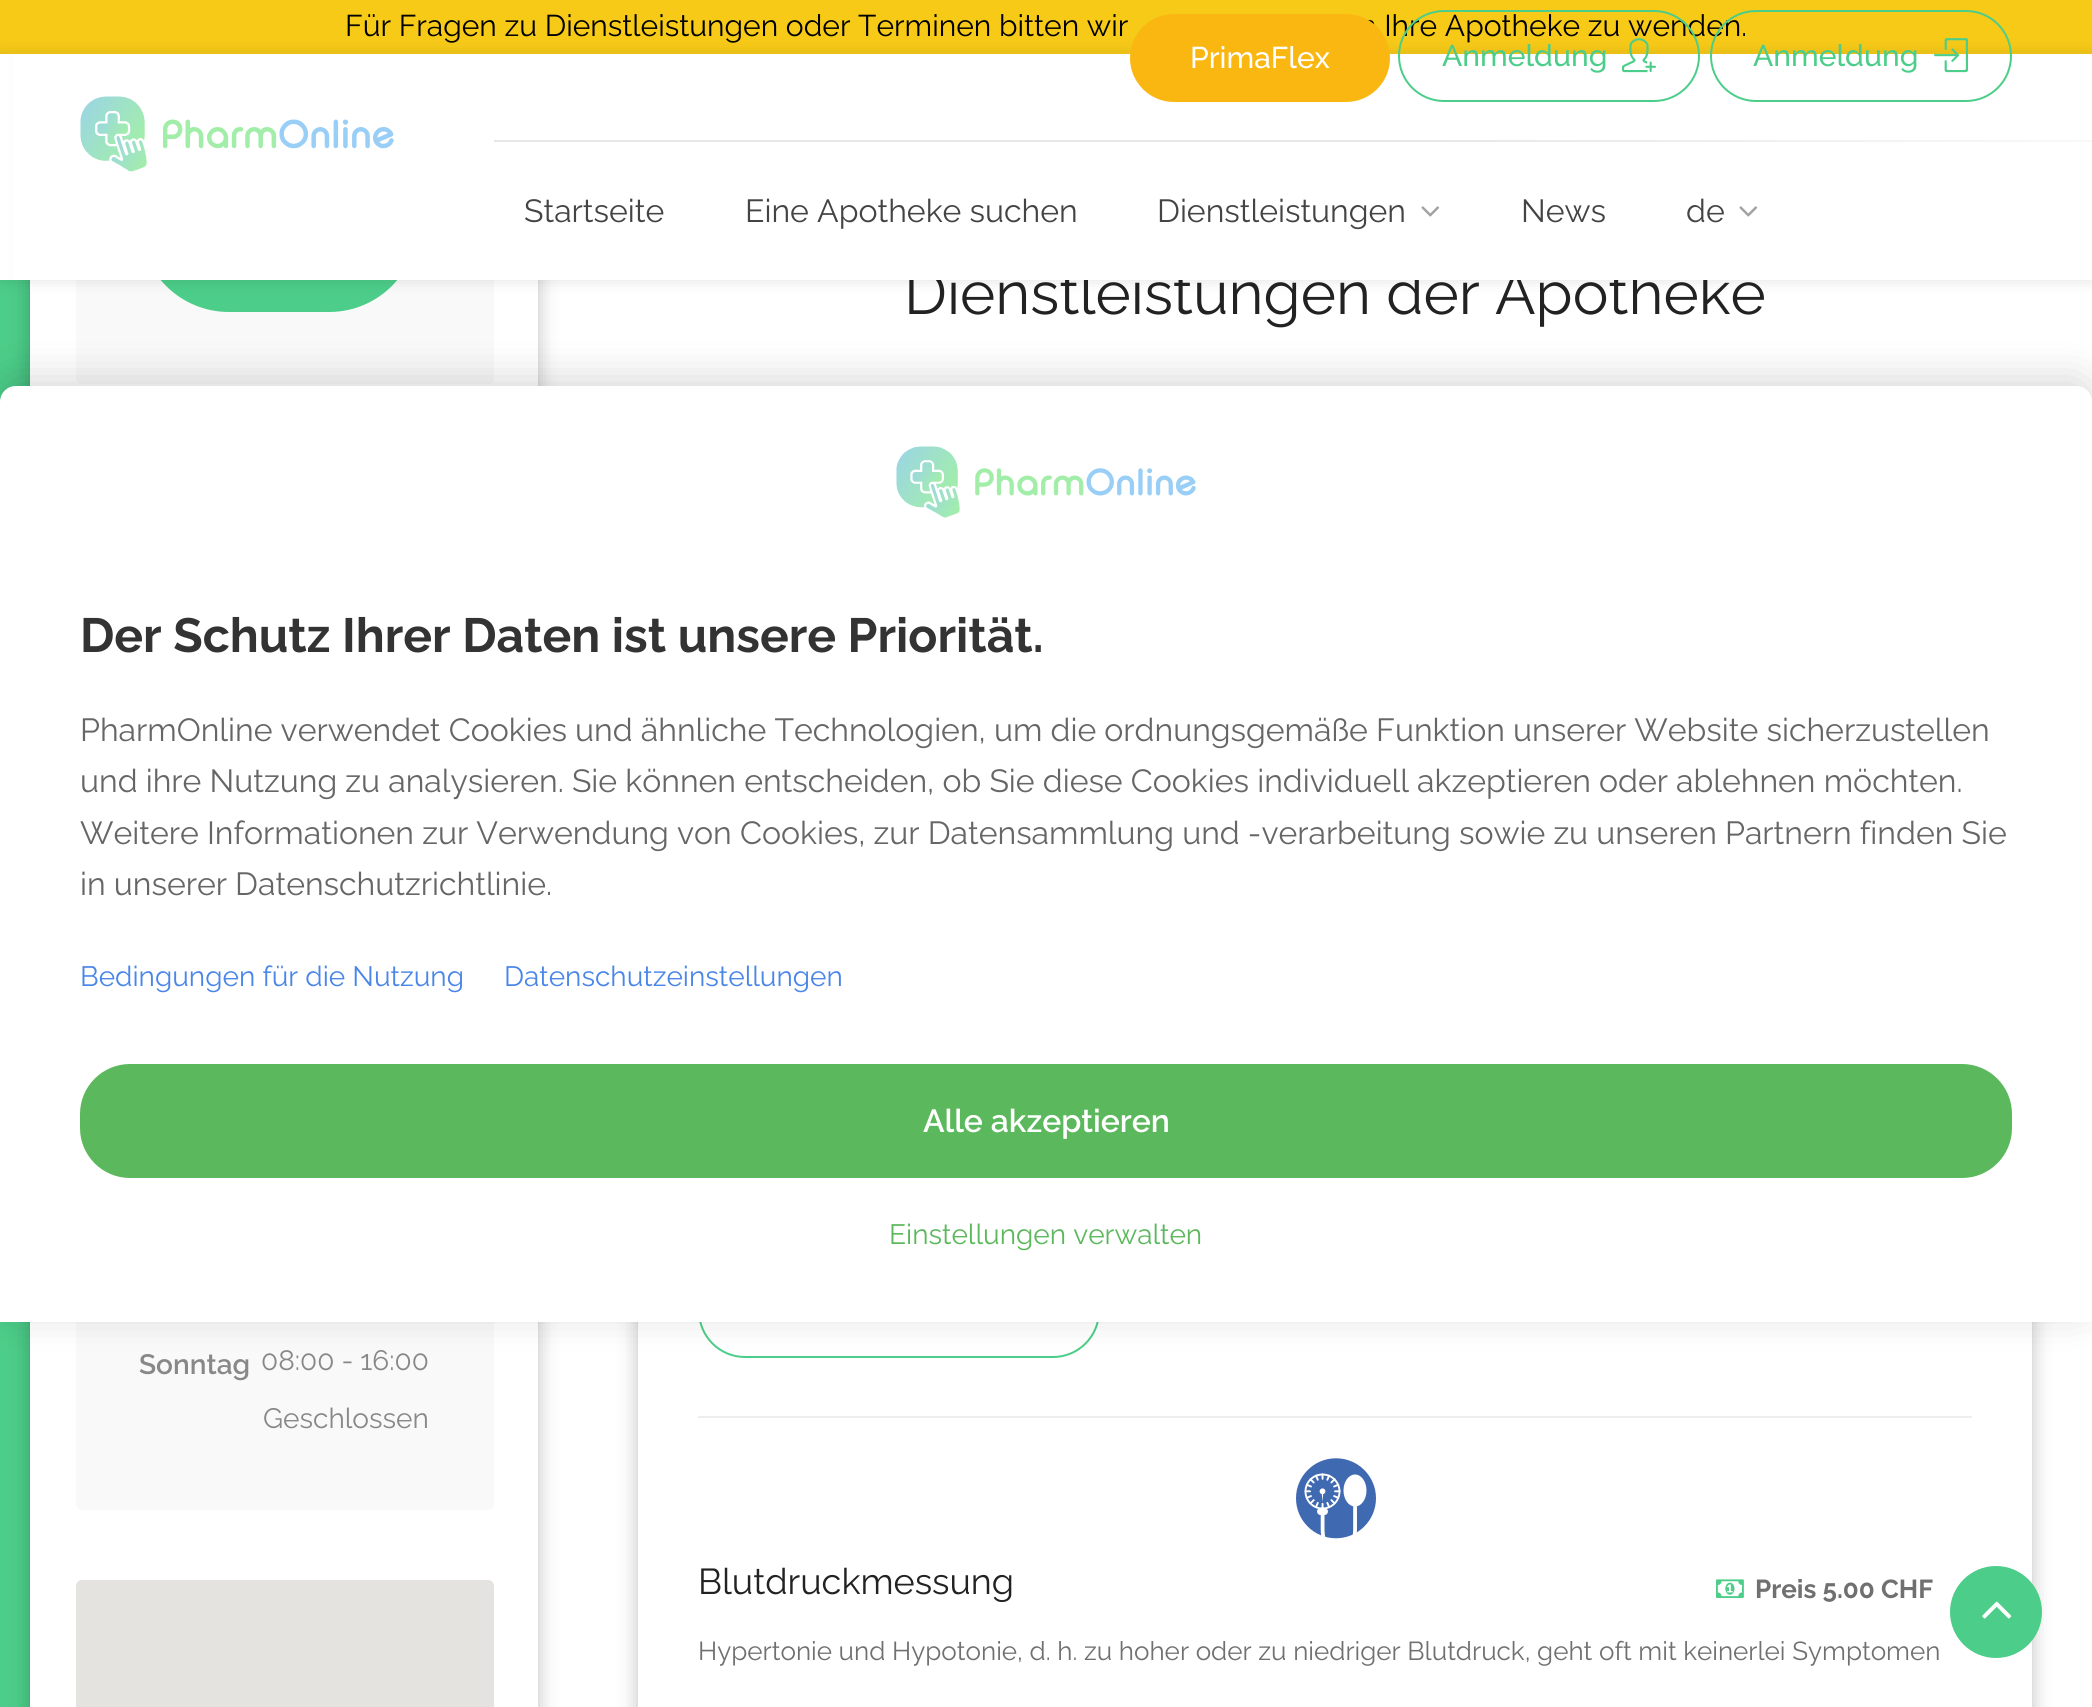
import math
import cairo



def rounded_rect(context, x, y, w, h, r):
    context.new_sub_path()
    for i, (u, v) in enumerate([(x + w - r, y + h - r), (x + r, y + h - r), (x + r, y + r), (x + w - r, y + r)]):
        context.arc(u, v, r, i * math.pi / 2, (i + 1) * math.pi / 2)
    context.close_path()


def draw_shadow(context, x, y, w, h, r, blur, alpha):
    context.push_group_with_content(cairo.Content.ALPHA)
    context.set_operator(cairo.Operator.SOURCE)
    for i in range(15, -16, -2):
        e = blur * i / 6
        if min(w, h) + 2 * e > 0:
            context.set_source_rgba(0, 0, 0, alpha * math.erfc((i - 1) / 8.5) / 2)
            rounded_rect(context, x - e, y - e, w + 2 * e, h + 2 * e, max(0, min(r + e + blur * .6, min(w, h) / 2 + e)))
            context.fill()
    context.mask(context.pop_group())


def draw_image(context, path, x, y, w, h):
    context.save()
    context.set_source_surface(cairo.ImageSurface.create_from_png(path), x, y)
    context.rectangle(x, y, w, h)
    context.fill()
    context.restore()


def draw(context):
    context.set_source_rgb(1, 1, 1)
    context.paint()
    context.set_source_rgb(76 / 255, 205 / 255, 137 / 255)
    context.rectangle(0, 280, 30, 1427)
    context.fill()
    context.set_source_rgb(0, 0, 0)
    draw_shadow(context, 30, -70, 508, 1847, 40, 10, 0.25)
    context.set_source_rgb(1, 1, 1)
    context.rectangle(30, 280, 508, 1427)
    context.fill()
    context.set_source_rgb(249 / 255, 249 / 255, 249 / 255)
    rounded_rect(context, 76, -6, 418, 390, 6)
    context.fill()
    context.set_source_rgb(247 / 255, 202 / 255, 24 / 255)
    context.rectangle(0, 0, 2092, 54)
    context.fill()
    context.set_source_rgb(76 / 255, 205 / 255, 137 / 255)
    rounded_rect(context, 140, 134, 278, 178, 89)
    context.fill()
    context.set_source_rgb(249 / 255, 249 / 255, 249 / 255)
    rounded_rect(context, 76, 464, 418, 1046, 6)
    context.fill()
    context.set_source_rgb(229 / 255, 227 / 255, 223 / 255)
    rounded_rect(context, 76, 1580, 418, 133, 6)
    context.fill()
    context.save()
    context.set_fill_rule(cairo.FillRule.EVEN_ODD)
    context.new_path()
    context.move_to(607, 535)
    context.line_to(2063, 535)
    context.line_to(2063, 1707)
    context.line_to(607, 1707)
    context.close_path()
    context.move_to(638, 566)
    context.line_to(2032, 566)
    context.line_to(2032, 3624)
    context.line_to(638, 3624)
    context.close_path()
    context.clip()
    context.set_source_rgb(0, 0, 0)
    draw_shadow(context, 638, 566, 1394, 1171, 0, 10, 0.25)
    context.restore()
    rounded_rect(context, 699, 1265, 400, 92, 46)
    context.set_source_rgb(76 / 255, 205 / 255, 137 / 255)
    context.stroke()
    context.set_source_rgb(238 / 255, 238 / 255, 238 / 255)
    context.rectangle(698, 1416, 1274, 2)
    context.fill()
    draw_image(context, "images/5.png", 1296, 1458, 80, 81)
    draw_image(context, "images/6.png", 1716, 1579, 28, 19)
    context.set_source_rgb(76 / 255, 205 / 255, 137 / 255)
    context.arc(1996, 1612, 46, 0, 2 * math.pi)
    context.fill()
    draw_image(context, "images/7.png", 1982, 1601, 30, 18)
    context.set_source_rgb(0, 0, 0)
    draw_shadow(context, 0, 378, 2092, 936, 16, 20, 0.15)
    context.set_source_rgb(1, 1, 1)
    context.new_path()
    context.move_to(16, 386)
    context.line_to(2076, 386)
    context.curve_to(2085, 386, 2092, 393, 2092, 402)
    context.line_to(2092, 1322)
    context.line_to(0, 1322)
    context.line_to(0, 402)
    context.curve_to(0, 393, 7, 386, 16, 386)
    context.close_path()
    context.fill()
    draw_image(context, "images/8.png", 896, 446, 300, 72)
    context.set_source_rgb(92 / 255, 184 / 255, 92 / 255)
    rounded_rect(context, 80, 1064, 1932, 114, 50)
    context.fill()
    context.select_font_face("Raleway")
    context.set_font_size(30)
    context.set_source_rgb(0, 0, 0)
    context.move_to(345, 36)
    context.show_text("Für Fragen zu Dienstleistungen oder Terminen bitten wir")
    context.move_to(1359, 36)
    context.show_text("n Ihre Apotheke zu wenden.")
    context.set_font_size(28)
    context.set_source_rgb(136 / 255, 136 / 255, 136 / 255)
    context.move_to(261, 1370)
    context.show_text("08:00 - 16:00")
    context.select_font_face("Raleway SemiBold")
    context.move_to(139, 1374)
    context.show_text("Sonntag")
    context.select_font_face("Raleway")
    context.move_to(263, 1428)
    context.show_text("Geschlossen")
    context.set_font_size(60)
    context.set_source_rgb(34 / 255, 34 / 255, 34 / 255)
    context.move_to(904, 314)
    context.show_text("Dienstleistungen der Apotheke")
    context.set_source_rgb(1, 1, 1)
    context.rectangle(13, 54, 1695, 226)
    context.fill()
    context.save()
    context.set_fill_rule(cairo.FillRule.EVEN_ODD)
    context.new_path()
    context.move_to(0, 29)
    context.line_to(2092, 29)
    context.line_to(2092, 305)
    context.line_to(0, 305)
    context.close_path()
    context.move_to(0, 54)
    context.line_to(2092, 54)
    context.line_to(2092, 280)
    context.line_to(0, 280)
    context.close_path()
    context.clip()
    context.set_source_rgb(0, 0, 0)
    draw_shadow(context, 0, 54, 2092, 226, 0, 8, 0.12)
    context.restore()
    rounded_rect(context, 1711, 11, 300, 90, 45)
    context.set_source_rgb(76 / 255, 205 / 255, 137 / 255)
    context.stroke()
    draw_image(context, "images/2.png", 1934, 38, 34, 35)
    context.select_font_face("Raleway Medium")
    context.set_font_size(30)
    context.move_to(1753, 66)
    context.show_text("Anmeldung")
    rounded_rect(context, 1399, 11, 300, 90, 45)
    context.stroke()
    draw_image(context, "images/1.png", 1622, 38, 34, 35)
    context.move_to(1442, 66)
    context.show_text("Anmeldung")
    context.set_source_rgb(250 / 255, 183 / 255, 18 / 255)
    rounded_rect(context, 1130, 14, 260, 88, 44)
    context.fill()
    context.set_source_rgb(1, 1, 1)
    context.move_to(1190, 68)
    context.show_text("PrimaFlex")
    draw_image(context, "images/4.png", 1739, 206, 19, 11)
    context.select_font_face("Raleway")
    context.set_font_size(32)
    context.set_source_rgb(68 / 255, 68 / 255, 68 / 255)
    context.move_to(1686, 222)
    context.show_text("de")
    context.move_to(1521, 222)
    context.show_text("News")
    draw_image(context, "images/4.png", 1421, 206, 19, 11)
    context.move_to(1157, 222)
    context.show_text("Dienstleistungen")
    context.move_to(745, 222)
    context.show_text("Eine Apotheke suchen")
    context.move_to(524, 222)
    context.show_text("Startseite")
    gradient = cairo.LinearGradient(494, 141, 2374, 141)
    gradient.add_color_stop_rgba(0.5, 232 / 255, 232 / 255, 232 / 255, 1)
    gradient.add_color_stop_rgba(1, 1, 1, 1, 1)
    context.set_source(gradient)
    context.rectangle(494, 140, 1598, 2)
    context.fill()
    draw_image(context, "images/3.png", 80, 96, 314, 76)
    context.set_font_size(36)
    context.set_source_rgb(34 / 255, 34 / 255, 34 / 255)
    context.move_to(698, 1594)
    context.show_text("Blutdruckmessung")
    context.select_font_face("Raleway", cairo.FontSlant.NORMAL, cairo.FontWeight.BOLD)
    context.set_font_size(26)
    context.set_source_rgb(112 / 255, 112 / 255, 112 / 255)
    context.move_to(1755, 1598)
    context.show_text("Preis 5.00 CHF")
    context.select_font_face("Raleway")
    context.move_to(698, 1660)
    context.show_text("Hypertonie und Hypotonie, d. h. zu hoher oder zu niedriger Blutdruck, geht oft mit keinerlei Symptomen")
    context.select_font_face("Raleway", cairo.FontSlant.NORMAL, cairo.FontWeight.BOLD)
    context.set_font_size(48)
    context.set_source_rgb(51 / 255, 51 / 255, 51 / 255)
    context.move_to(80, 652)
    context.show_text("Der Schutz Ihrer Daten ist unsere Priorität.")
    context.select_font_face("Raleway")
    context.set_font_size(32)
    context.set_source_rgb(102 / 255, 102 / 255, 102 / 255)
    context.move_to(80, 741)
    context.show_text("PharmOnline verwendet Cookies und ähnliche Technologien, um die ordnungsgemäße Funktion unserer Website sicherzustellen")
    context.move_to(80, 792)
    context.show_text("und ihre Nutzung zu analysieren. Sie können entscheiden, ob Sie diese Cookies individuell akzeptieren oder ablehnen möchten.")
    context.move_to(80, 844)
    context.show_text("Weitere Informationen zur Verwendung von Cookies, zur Datensammlung und -verarbeitung sowie zu unseren Partnern finden Sie")
    context.move_to(80, 895)
    context.show_text("in unserer Datenschutzrichtlinie.")
    context.set_font_size(28)
    context.set_source_rgb(74 / 255, 134 / 255, 232 / 255)
    context.move_to(80, 986)
    context.show_text("Bedingungen für die Nutzung")
    context.move_to(504, 986)
    context.show_text("Datenschutzeinstellungen")
    context.select_font_face("Raleway SemiBold")
    context.set_font_size(32)
    context.set_source_rgb(1, 1, 1)
    context.move_to(923, 1132)
    context.show_text("Alle akzeptieren")
    context.select_font_face("Raleway")
    context.set_font_size(28)
    context.set_source_rgb(92 / 255, 184 / 255, 92 / 255)
    context.move_to(889, 1244)
    context.show_text("Einstellungen verwalten")


surface = cairo.ImageSurface(cairo.Format.RGB24, 2092, 1707)
context = cairo.Context(surface)
options = cairo.FontOptions()
options.set_hint_metrics(cairo.HintMetrics.OFF)
options.set_hint_style(cairo.HintStyle.NONE)
context.set_font_options(options)
context.set_miter_limit(4)
draw(context)
surface.write_to_png("out.png")
